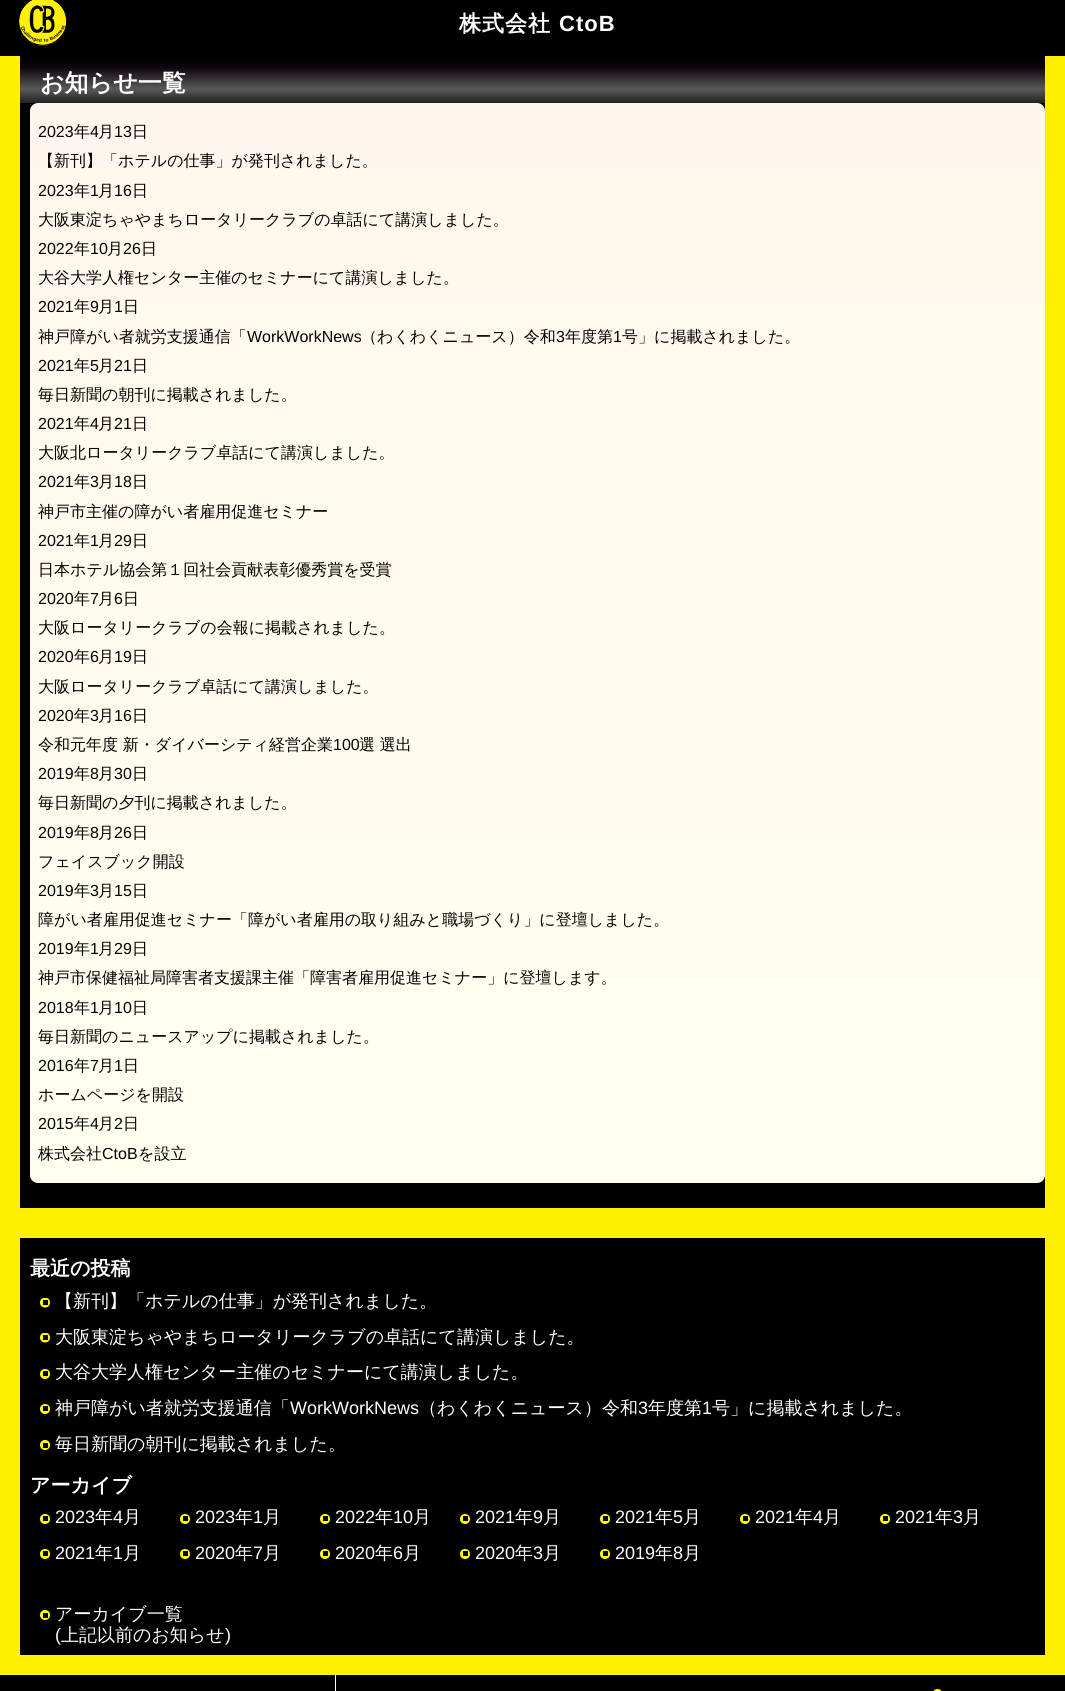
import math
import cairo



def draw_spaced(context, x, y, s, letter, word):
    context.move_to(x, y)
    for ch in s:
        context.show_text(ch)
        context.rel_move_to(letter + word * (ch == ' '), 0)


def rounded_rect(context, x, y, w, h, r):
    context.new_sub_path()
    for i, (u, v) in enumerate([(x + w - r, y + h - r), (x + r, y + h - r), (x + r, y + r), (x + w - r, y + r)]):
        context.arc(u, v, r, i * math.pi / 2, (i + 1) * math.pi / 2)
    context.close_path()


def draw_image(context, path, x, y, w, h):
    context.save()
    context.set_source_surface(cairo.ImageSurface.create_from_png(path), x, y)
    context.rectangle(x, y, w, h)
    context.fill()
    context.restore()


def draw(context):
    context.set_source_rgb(1, 240 / 255, 0)
    context.paint()
    context.set_source_rgb(0, 0, 0)
    context.rectangle(0, 0, 1065, 56)
    context.fill()
    draw_image(context, "images/1.png", 19, 0, 48, 46)
    context.rectangle(20, 103, 1025, 1105)
    context.fill()
    gradient = cairo.LinearGradient(533, 56, 533, 103)
    gradient.add_color_stop_rgba(0, 0, 0, 0, 1)
    gradient.add_color_stop_rgba(0.25, 15 / 255, 6 / 255, 15 / 255, 1)
    gradient.add_color_stop_rgba(0.7, 89 / 255, 89 / 255, 89 / 255, 1)
    gradient.add_color_stop_rgba(1, 34 / 255, 34 / 255, 34 / 255, 1)
    context.set_source(gradient)
    context.rectangle(20, 56, 1025, 47)
    context.fill()
    gradient = cairo.LinearGradient(537, 102, 538, 1183)
    gradient.add_color_stop_rgba(0, 1, 247 / 255, 237 / 255, 1)
    gradient.add_color_stop_rgba(1, 1, 1, 240 / 255, 1)
    context.set_source(gradient)
    rounded_rect(context, 30, 103, 1015, 1080, 8)
    context.fill()
    context.set_source_rgb(0, 0, 0)
    context.rectangle(20, 1238, 1025, 417)
    context.fill()
    context.save()
    context.rectangle(40, 1298, 10, 10)
    context.clip()
    context.set_source_rgb(1, 1, 0)
    context.arc(45, 1302.5, 5, 0, 2 * math.pi)
    context.fill()
    context.restore()
    context.rectangle(43, 1300, 5, 5)
    context.fill()
    context.save()
    context.rectangle(40, 1333, 10, 10)
    context.clip()
    context.set_source_rgb(1, 1, 0)
    context.arc(45, 1337.5, 5, 0, 2 * math.pi)
    context.fill()
    context.restore()
    context.rectangle(43, 1335, 5, 5)
    context.fill()
    context.set_source_rgb(1, 1, 0)
    context.arc(45, 1374, 5, 0, 2 * math.pi)
    context.fill()
    context.set_source_rgb(0, 0, 0)
    context.rectangle(43, 1371, 5, 5)
    context.fill()
    context.set_source_rgb(1, 1, 0)
    context.arc(45, 1409, 5, 0, 2 * math.pi)
    context.fill()
    context.set_source_rgb(0, 0, 0)
    context.rectangle(43, 1406, 5, 5)
    context.fill()
    context.set_source_rgb(1, 1, 0)
    context.arc(45, 1445, 5, 0, 2 * math.pi)
    context.fill()
    context.set_source_rgb(0, 0, 0)
    context.rectangle(43, 1443, 5, 5)
    context.fill()
    context.set_source_rgb(1, 1, 0)
    context.arc(45, 1519, 5, 0, 2 * math.pi)
    context.fill()
    context.set_source_rgb(0, 0, 0)
    context.rectangle(43, 1516, 5, 5)
    context.fill()
    context.set_source_rgb(1, 1, 0)
    context.arc(185, 1519, 5, 0, 2 * math.pi)
    context.fill()
    context.set_source_rgb(0, 0, 0)
    context.rectangle(183, 1516, 5, 5)
    context.fill()
    context.set_source_rgb(1, 1, 0)
    context.arc(325, 1519, 5, 0, 2 * math.pi)
    context.fill()
    context.set_source_rgb(0, 0, 0)
    context.rectangle(323, 1516, 5, 5)
    context.fill()
    context.set_source_rgb(1, 1, 0)
    context.arc(465, 1519, 5, 0, 2 * math.pi)
    context.fill()
    context.set_source_rgb(0, 0, 0)
    context.rectangle(463, 1516, 5, 5)
    context.fill()
    context.set_source_rgb(1, 1, 0)
    context.arc(605, 1519, 5, 0, 2 * math.pi)
    context.fill()
    context.set_source_rgb(0, 0, 0)
    context.rectangle(603, 1516, 5, 5)
    context.fill()
    context.set_source_rgb(1, 1, 0)
    context.arc(745, 1519, 5, 0, 2 * math.pi)
    context.fill()
    context.set_source_rgb(0, 0, 0)
    context.rectangle(743, 1516, 5, 5)
    context.fill()
    context.set_source_rgb(1, 1, 0)
    context.arc(885, 1519, 5, 0, 2 * math.pi)
    context.fill()
    context.set_source_rgb(0, 0, 0)
    context.rectangle(883, 1516, 5, 5)
    context.fill()
    context.set_source_rgb(1, 1, 0)
    context.arc(45, 1554, 5, 0, 2 * math.pi)
    context.fill()
    context.set_source_rgb(0, 0, 0)
    context.rectangle(43, 1551, 5, 5)
    context.fill()
    context.set_source_rgb(1, 1, 0)
    context.arc(185, 1554, 5, 0, 2 * math.pi)
    context.fill()
    context.set_source_rgb(0, 0, 0)
    context.rectangle(183, 1551, 5, 5)
    context.fill()
    context.set_source_rgb(1, 1, 0)
    context.arc(325, 1554, 5, 0, 2 * math.pi)
    context.fill()
    context.set_source_rgb(0, 0, 0)
    context.rectangle(323, 1551, 5, 5)
    context.fill()
    context.set_source_rgb(1, 1, 0)
    context.arc(465, 1554, 5, 0, 2 * math.pi)
    context.fill()
    context.set_source_rgb(0, 0, 0)
    context.rectangle(463, 1551, 5, 5)
    context.fill()
    context.set_source_rgb(1, 1, 0)
    context.arc(605, 1554, 5, 0, 2 * math.pi)
    context.fill()
    context.set_source_rgb(0, 0, 0)
    context.rectangle(603, 1551, 5, 5)
    context.fill()
    context.set_source_rgb(1, 1, 0)
    context.arc(45, 1615, 5, 0, 2 * math.pi)
    context.fill()
    context.set_source_rgb(0, 0, 0)
    context.rectangle(43, 1613, 5, 5)
    context.fill()
    context.rectangle(0, 1675, 1065, 16)
    context.fill()
    context.set_source_rgb(1, 1, 1)
    context.rectangle(335, 1675, 1, 16)
    context.fill()
    draw_image(context, "images/2.png", 933, 1689, 9, 2)
    context.select_font_face("WenQuanYi Zen Hei", cairo.FontSlant.NORMAL, cairo.FontWeight.BOLD)
    context.set_font_size(22)
    draw_spaced(context, 459, 31, "株式会社", 1, 0)
    context.select_font_face("Liberation Sans", cairo.FontSlant.NORMAL, cairo.FontWeight.BOLD)
    draw_spaced(context, 559, 31, "CtoB", 1, 0)
    context.select_font_face("WenQuanYi Zen Hei", cairo.FontSlant.NORMAL, cairo.FontWeight.BOLD)
    context.set_font_size(24)
    context.move_to(40, 91)
    context.show_text("お知らせ一覧")
    context.select_font_face("Liberation Sans")
    context.set_font_size(16)
    context.set_source_rgb(0, 0, 0)
    context.move_to(38, 137)
    context.show_text("2023")
    context.select_font_face("WenQuanYi Zen Hei Medium")
    context.move_to(74, 137)
    context.show_text("年")
    context.select_font_face("Liberation Sans")
    context.move_to(90, 137)
    context.show_text("4")
    context.select_font_face("WenQuanYi Zen Hei Medium")
    context.move_to(98, 137)
    context.show_text("月")
    context.select_font_face("Liberation Sans")
    context.move_to(114, 137)
    context.show_text("13")
    context.select_font_face("WenQuanYi Zen Hei Medium")
    context.move_to(132, 137)
    context.show_text("日")
    context.move_to(38, 166)
    context.show_text("【新刊】「ホテルの仕事」が発刊されました。")
    context.select_font_face("Liberation Sans")
    context.move_to(38, 196)
    context.show_text("2023")
    context.select_font_face("WenQuanYi Zen Hei Medium")
    context.move_to(74, 196)
    context.show_text("年")
    context.select_font_face("Liberation Sans")
    context.move_to(90, 196)
    context.show_text("1")
    context.select_font_face("WenQuanYi Zen Hei Medium")
    context.move_to(98, 196)
    context.show_text("月")
    context.select_font_face("Liberation Sans")
    context.move_to(114, 196)
    context.show_text("16")
    context.select_font_face("WenQuanYi Zen Hei Medium")
    context.move_to(132, 196)
    context.show_text("日")
    context.move_to(38, 225)
    context.show_text("大阪東淀ちゃやまちロータリークラブの卓話にて講演しました。")
    context.select_font_face("Liberation Sans")
    context.move_to(38, 254)
    context.show_text("2022")
    context.select_font_face("WenQuanYi Zen Hei Medium")
    context.move_to(74, 254)
    context.show_text("年")
    context.select_font_face("Liberation Sans")
    context.move_to(90, 254)
    context.show_text("10")
    context.select_font_face("WenQuanYi Zen Hei Medium")
    context.move_to(107, 254)
    context.show_text("月")
    context.select_font_face("Liberation Sans")
    context.move_to(123, 254)
    context.show_text("26")
    context.select_font_face("WenQuanYi Zen Hei Medium")
    context.move_to(141, 254)
    context.show_text("日")
    context.move_to(38, 283)
    context.show_text("大谷大学人権センター主催のセミナーにて講演しました。")
    context.select_font_face("Liberation Sans")
    context.move_to(38, 312)
    context.show_text("2021")
    context.select_font_face("WenQuanYi Zen Hei Medium")
    context.move_to(74, 312)
    context.show_text("年")
    context.select_font_face("Liberation Sans")
    context.move_to(90, 312)
    context.show_text("9")
    context.select_font_face("WenQuanYi Zen Hei Medium")
    context.move_to(98, 312)
    context.show_text("月")
    context.select_font_face("Liberation Sans")
    context.move_to(114, 312)
    context.show_text("1")
    context.select_font_face("WenQuanYi Zen Hei Medium")
    context.move_to(123, 312)
    context.show_text("日")
    context.move_to(38, 342)
    context.show_text("神戸障がい者就労支援通信「")
    context.select_font_face("Liberation Sans")
    context.move_to(247, 342)
    context.show_text("WorkWorkNews")
    context.select_font_face("WenQuanYi Zen Hei Medium")
    context.move_to(361, 342)
    context.show_text("（わくわくニュース）令和")
    context.select_font_face("Liberation Sans")
    context.move_to(556, 342)
    context.show_text("3")
    context.select_font_face("WenQuanYi Zen Hei Medium")
    context.move_to(565, 342)
    context.show_text("年度第")
    context.select_font_face("Liberation Sans")
    context.move_to(613, 342)
    context.show_text("1")
    context.select_font_face("WenQuanYi Zen Hei Medium")
    context.move_to(622, 342)
    context.show_text("号」に掲載されました。")
    context.select_font_face("Liberation Sans")
    context.move_to(38, 371)
    context.show_text("2021")
    context.select_font_face("WenQuanYi Zen Hei Medium")
    context.move_to(74, 371)
    context.show_text("年")
    context.select_font_face("Liberation Sans")
    context.move_to(90, 371)
    context.show_text("5")
    context.select_font_face("WenQuanYi Zen Hei Medium")
    context.move_to(98, 371)
    context.show_text("月")
    context.select_font_face("Liberation Sans")
    context.move_to(114, 371)
    context.show_text("21")
    context.select_font_face("WenQuanYi Zen Hei Medium")
    context.move_to(132, 371)
    context.show_text("日")
    context.move_to(38, 400)
    context.show_text("毎日新聞の朝刊に掲載されました。")
    context.select_font_face("Liberation Sans")
    context.move_to(38, 429)
    context.show_text("2021")
    context.select_font_face("WenQuanYi Zen Hei Medium")
    context.move_to(74, 429)
    context.show_text("年")
    context.select_font_face("Liberation Sans")
    context.move_to(90, 429)
    context.show_text("4")
    context.select_font_face("WenQuanYi Zen Hei Medium")
    context.move_to(98, 429)
    context.show_text("月")
    context.select_font_face("Liberation Sans")
    context.move_to(114, 429)
    context.show_text("21")
    context.select_font_face("WenQuanYi Zen Hei Medium")
    context.move_to(132, 429)
    context.show_text("日")
    context.move_to(38, 458)
    context.show_text("大阪北ロータリークラブ卓話にて講演しました。")
    context.select_font_face("Liberation Sans")
    context.move_to(38, 487)
    context.show_text("2021")
    context.select_font_face("WenQuanYi Zen Hei Medium")
    context.move_to(74, 487)
    context.show_text("年")
    context.select_font_face("Liberation Sans")
    context.move_to(90, 487)
    context.show_text("3")
    context.select_font_face("WenQuanYi Zen Hei Medium")
    context.move_to(98, 487)
    context.show_text("月")
    context.select_font_face("Liberation Sans")
    context.move_to(114, 487)
    context.show_text("18")
    context.select_font_face("WenQuanYi Zen Hei Medium")
    context.move_to(132, 487)
    context.show_text("日")
    context.move_to(38, 517)
    context.show_text("神戸市主催の障がい者雇用促進セミナー")
    context.select_font_face("Liberation Sans")
    context.move_to(38, 546)
    context.show_text("2021")
    context.select_font_face("WenQuanYi Zen Hei Medium")
    context.move_to(74, 546)
    context.show_text("年")
    context.select_font_face("Liberation Sans")
    context.move_to(90, 546)
    context.show_text("1")
    context.select_font_face("WenQuanYi Zen Hei Medium")
    context.move_to(98, 546)
    context.show_text("月")
    context.select_font_face("Liberation Sans")
    context.move_to(114, 546)
    context.show_text("29")
    context.select_font_face("WenQuanYi Zen Hei Medium")
    context.move_to(132, 546)
    context.show_text("日")
    context.move_to(38, 575)
    context.show_text("日本ホテル協会第１回社会貢献表彰優秀賞を受賞")
    context.select_font_face("Liberation Sans")
    context.move_to(38, 604)
    context.show_text("2020")
    context.select_font_face("WenQuanYi Zen Hei Medium")
    context.move_to(74, 604)
    context.show_text("年")
    context.select_font_face("Liberation Sans")
    context.move_to(90, 604)
    context.show_text("7")
    context.select_font_face("WenQuanYi Zen Hei Medium")
    context.move_to(98, 604)
    context.show_text("月")
    context.select_font_face("Liberation Sans")
    context.move_to(114, 604)
    context.show_text("6")
    context.select_font_face("WenQuanYi Zen Hei Medium")
    context.move_to(123, 604)
    context.show_text("日")
    context.move_to(38, 633)
    context.show_text("大阪ロータリークラブの会報に掲載されました。")
    context.select_font_face("Liberation Sans")
    context.move_to(38, 662)
    context.show_text("2020")
    context.select_font_face("WenQuanYi Zen Hei Medium")
    context.move_to(74, 662)
    context.show_text("年")
    context.select_font_face("Liberation Sans")
    context.move_to(90, 662)
    context.show_text("6")
    context.select_font_face("WenQuanYi Zen Hei Medium")
    context.move_to(98, 662)
    context.show_text("月")
    context.select_font_face("Liberation Sans")
    context.move_to(114, 662)
    context.show_text("19")
    context.select_font_face("WenQuanYi Zen Hei Medium")
    context.move_to(132, 662)
    context.show_text("日")
    context.move_to(38, 692)
    context.show_text("大阪ロータリークラブ卓話にて講演しました。")
    context.select_font_face("Liberation Sans")
    context.move_to(38, 721)
    context.show_text("2020")
    context.select_font_face("WenQuanYi Zen Hei Medium")
    context.move_to(74, 721)
    context.show_text("年")
    context.select_font_face("Liberation Sans")
    context.move_to(90, 721)
    context.show_text("3")
    context.select_font_face("WenQuanYi Zen Hei Medium")
    context.move_to(98, 721)
    context.show_text("月")
    context.select_font_face("Liberation Sans")
    context.move_to(114, 721)
    context.show_text("16")
    context.select_font_face("WenQuanYi Zen Hei Medium")
    context.move_to(132, 721)
    context.show_text("日")
    context.move_to(38, 750)
    context.show_text("令和元年度 新・ダイバーシティ経営企業")
    context.select_font_face("Liberation Sans")
    context.move_to(333, 750)
    context.show_text("100")
    context.select_font_face("WenQuanYi Zen Hei Medium")
    context.move_to(359, 750)
    context.show_text("選 選出")
    context.select_font_face("Liberation Sans")
    context.move_to(38, 779)
    context.show_text("2019")
    context.select_font_face("WenQuanYi Zen Hei Medium")
    context.move_to(74, 779)
    context.show_text("年")
    context.select_font_face("Liberation Sans")
    context.move_to(90, 779)
    context.show_text("8")
    context.select_font_face("WenQuanYi Zen Hei Medium")
    context.move_to(98, 779)
    context.show_text("月")
    context.select_font_face("Liberation Sans")
    context.move_to(114, 779)
    context.show_text("30")
    context.select_font_face("WenQuanYi Zen Hei Medium")
    context.move_to(132, 779)
    context.show_text("日")
    context.move_to(38, 808)
    context.show_text("毎日新聞の夕刊に掲載されました。")
    context.select_font_face("Liberation Sans")
    context.move_to(38, 838)
    context.show_text("2019")
    context.select_font_face("WenQuanYi Zen Hei Medium")
    context.move_to(74, 838)
    context.show_text("年")
    context.select_font_face("Liberation Sans")
    context.move_to(90, 838)
    context.show_text("8")
    context.select_font_face("WenQuanYi Zen Hei Medium")
    context.move_to(98, 838)
    context.show_text("月")
    context.select_font_face("Liberation Sans")
    context.move_to(114, 838)
    context.show_text("26")
    context.select_font_face("WenQuanYi Zen Hei Medium")
    context.move_to(132, 838)
    context.show_text("日")
    context.move_to(38, 867)
    context.show_text("フェイスブック開設")
    context.select_font_face("Liberation Sans")
    context.move_to(38, 896)
    context.show_text("2019")
    context.select_font_face("WenQuanYi Zen Hei Medium")
    context.move_to(74, 896)
    context.show_text("年")
    context.select_font_face("Liberation Sans")
    context.move_to(90, 896)
    context.show_text("3")
    context.select_font_face("WenQuanYi Zen Hei Medium")
    context.move_to(98, 896)
    context.show_text("月")
    context.select_font_face("Liberation Sans")
    context.move_to(114, 896)
    context.show_text("15")
    context.select_font_face("WenQuanYi Zen Hei Medium")
    context.move_to(132, 896)
    context.show_text("日")
    context.move_to(38, 925)
    context.show_text("障がい者雇用促進セミナー「障がい者雇用の取り組みと職場づくり」に登壇しました。")
    context.select_font_face("Liberation Sans")
    context.move_to(38, 954)
    context.show_text("2019")
    context.select_font_face("WenQuanYi Zen Hei Medium")
    context.move_to(74, 954)
    context.show_text("年")
    context.select_font_face("Liberation Sans")
    context.move_to(90, 954)
    context.show_text("1")
    context.select_font_face("WenQuanYi Zen Hei Medium")
    context.move_to(98, 954)
    context.show_text("月")
    context.select_font_face("Liberation Sans")
    context.move_to(114, 954)
    context.show_text("29")
    context.select_font_face("WenQuanYi Zen Hei Medium")
    context.move_to(132, 954)
    context.show_text("日")
    context.move_to(38, 983)
    context.show_text("神戸市保健福祉局障害者支援課主催「障害者雇用促進セミナー」に登壇します。")
    context.select_font_face("Liberation Sans")
    context.move_to(38, 1013)
    context.show_text("2018")
    context.select_font_face("WenQuanYi Zen Hei Medium")
    context.move_to(74, 1013)
    context.show_text("年")
    context.select_font_face("Liberation Sans")
    context.move_to(90, 1013)
    context.show_text("1")
    context.select_font_face("WenQuanYi Zen Hei Medium")
    context.move_to(98, 1013)
    context.show_text("月")
    context.select_font_face("Liberation Sans")
    context.move_to(114, 1013)
    context.show_text("10")
    context.select_font_face("WenQuanYi Zen Hei Medium")
    context.move_to(132, 1013)
    context.show_text("日")
    context.move_to(38, 1042)
    context.show_text("毎日新聞のニュースアップに掲載されました。")
    context.select_font_face("Liberation Sans")
    context.move_to(38, 1071)
    context.show_text("2016")
    context.select_font_face("WenQuanYi Zen Hei Medium")
    context.move_to(74, 1071)
    context.show_text("年")
    context.select_font_face("Liberation Sans")
    context.move_to(90, 1071)
    context.show_text("7")
    context.select_font_face("WenQuanYi Zen Hei Medium")
    context.move_to(98, 1071)
    context.show_text("月")
    context.select_font_face("Liberation Sans")
    context.move_to(114, 1071)
    context.show_text("1")
    context.select_font_face("WenQuanYi Zen Hei Medium")
    context.move_to(123, 1071)
    context.show_text("日")
    context.move_to(38, 1100)
    context.show_text("ホームページを開設")
    context.select_font_face("Liberation Sans")
    context.move_to(38, 1129)
    context.show_text("2015")
    context.select_font_face("WenQuanYi Zen Hei Medium")
    context.move_to(74, 1129)
    context.show_text("年")
    context.select_font_face("Liberation Sans")
    context.move_to(90, 1129)
    context.show_text("4")
    context.select_font_face("WenQuanYi Zen Hei Medium")
    context.move_to(98, 1129)
    context.show_text("月")
    context.select_font_face("Liberation Sans")
    context.move_to(114, 1129)
    context.show_text("2")
    context.select_font_face("WenQuanYi Zen Hei Medium")
    context.move_to(123, 1129)
    context.show_text("日")
    context.move_to(38, 1159)
    context.show_text("株式会社")
    context.select_font_face("Liberation Sans")
    context.move_to(102, 1159)
    context.show_text("CtoB")
    context.select_font_face("WenQuanYi Zen Hei Medium")
    context.move_to(138, 1159)
    context.show_text("を設立")
    context.select_font_face("WenQuanYi Zen Hei", cairo.FontSlant.NORMAL, cairo.FontWeight.BOLD)
    context.set_font_size(20)
    context.set_source_rgb(1, 1, 1)
    context.move_to(30, 1275)
    context.show_text("最近の投稿")
    context.select_font_face("WenQuanYi Zen Hei Medium")
    context.set_font_size(18)
    context.move_to(55, 1307)
    context.show_text("【新刊】「ホテルの仕事」が発刊されました。")
    context.move_to(55, 1343)
    context.show_text("大阪東淀ちゃやまちロータリークラブの卓話にて講演しました。")
    context.move_to(55, 1378)
    context.show_text("大谷大学人権センター主催のセミナーにて講演しました。")
    context.move_to(55, 1414)
    context.show_text("神戸障がい者就労支援通信「")
    context.select_font_face("Liberation Sans")
    context.move_to(290, 1414)
    context.show_text("WorkWorkNews")
    context.select_font_face("WenQuanYi Zen Hei Medium")
    context.move_to(419, 1414)
    context.show_text("（わくわくニュース）令和")
    context.select_font_face("Liberation Sans")
    context.move_to(638, 1414)
    context.show_text("3")
    context.select_font_face("WenQuanYi Zen Hei Medium")
    context.move_to(648, 1414)
    context.show_text("年度第")
    context.select_font_face("Liberation Sans")
    context.move_to(702, 1414)
    context.show_text("1")
    context.select_font_face("WenQuanYi Zen Hei Medium")
    context.move_to(712, 1414)
    context.show_text("号」に掲載されました。")
    context.move_to(55, 1450)
    context.show_text("毎日新聞の朝刊に掲載されました。")
    context.select_font_face("WenQuanYi Zen Hei", cairo.FontSlant.NORMAL, cairo.FontWeight.BOLD)
    context.set_font_size(20)
    context.move_to(30, 1492)
    context.show_text("アーカイブ")
    context.select_font_face("Liberation Sans")
    context.set_font_size(18)
    context.move_to(55, 1523)
    context.show_text("2023")
    context.select_font_face("WenQuanYi Zen Hei Medium")
    context.move_to(95, 1523)
    context.show_text("年")
    context.select_font_face("Liberation Sans")
    context.move_to(113, 1523)
    context.show_text("4")
    context.select_font_face("WenQuanYi Zen Hei Medium")
    context.move_to(123, 1523)
    context.show_text("月")
    context.select_font_face("Liberation Sans")
    context.move_to(195, 1523)
    context.show_text("2023")
    context.select_font_face("WenQuanYi Zen Hei Medium")
    context.move_to(235, 1523)
    context.show_text("年")
    context.select_font_face("Liberation Sans")
    context.move_to(253, 1523)
    context.show_text("1")
    context.select_font_face("WenQuanYi Zen Hei Medium")
    context.move_to(263, 1523)
    context.show_text("月")
    context.select_font_face("Liberation Sans")
    context.move_to(335, 1523)
    context.show_text("2022")
    context.select_font_face("WenQuanYi Zen Hei Medium")
    context.move_to(375, 1523)
    context.show_text("年")
    context.select_font_face("Liberation Sans")
    context.move_to(393, 1523)
    context.show_text("10")
    context.select_font_face("WenQuanYi Zen Hei Medium")
    context.move_to(413, 1523)
    context.show_text("月")
    context.select_font_face("Liberation Sans")
    context.move_to(475, 1523)
    context.show_text("2021")
    context.select_font_face("WenQuanYi Zen Hei Medium")
    context.move_to(515, 1523)
    context.show_text("年")
    context.select_font_face("Liberation Sans")
    context.move_to(533, 1523)
    context.show_text("9")
    context.select_font_face("WenQuanYi Zen Hei Medium")
    context.move_to(543, 1523)
    context.show_text("月")
    context.select_font_face("Liberation Sans")
    context.move_to(615, 1523)
    context.show_text("2021")
    context.select_font_face("WenQuanYi Zen Hei Medium")
    context.move_to(655, 1523)
    context.show_text("年")
    context.select_font_face("Liberation Sans")
    context.move_to(673, 1523)
    context.show_text("5")
    context.select_font_face("WenQuanYi Zen Hei Medium")
    context.move_to(683, 1523)
    context.show_text("月")
    context.select_font_face("Liberation Sans")
    context.move_to(755, 1523)
    context.show_text("2021")
    context.select_font_face("WenQuanYi Zen Hei Medium")
    context.move_to(795, 1523)
    context.show_text("年")
    context.select_font_face("Liberation Sans")
    context.move_to(813, 1523)
    context.show_text("4")
    context.select_font_face("WenQuanYi Zen Hei Medium")
    context.move_to(823, 1523)
    context.show_text("月")
    context.select_font_face("Liberation Sans")
    context.move_to(895, 1523)
    context.show_text("2021")
    context.select_font_face("WenQuanYi Zen Hei Medium")
    context.move_to(935, 1523)
    context.show_text("年")
    context.select_font_face("Liberation Sans")
    context.move_to(953, 1523)
    context.show_text("3")
    context.select_font_face("WenQuanYi Zen Hei Medium")
    context.move_to(963, 1523)
    context.show_text("月")
    context.select_font_face("Liberation Sans")
    context.move_to(55, 1559)
    context.show_text("2021")
    context.select_font_face("WenQuanYi Zen Hei Medium")
    context.move_to(95, 1559)
    context.show_text("年")
    context.select_font_face("Liberation Sans")
    context.move_to(113, 1559)
    context.show_text("1")
    context.select_font_face("WenQuanYi Zen Hei Medium")
    context.move_to(123, 1559)
    context.show_text("月")
    context.select_font_face("Liberation Sans")
    context.move_to(195, 1559)
    context.show_text("2020")
    context.select_font_face("WenQuanYi Zen Hei Medium")
    context.move_to(235, 1559)
    context.show_text("年")
    context.select_font_face("Liberation Sans")
    context.move_to(253, 1559)
    context.show_text("7")
    context.select_font_face("WenQuanYi Zen Hei Medium")
    context.move_to(263, 1559)
    context.show_text("月")
    context.select_font_face("Liberation Sans")
    context.move_to(335, 1559)
    context.show_text("2020")
    context.select_font_face("WenQuanYi Zen Hei Medium")
    context.move_to(375, 1559)
    context.show_text("年")
    context.select_font_face("Liberation Sans")
    context.move_to(393, 1559)
    context.show_text("6")
    context.select_font_face("WenQuanYi Zen Hei Medium")
    context.move_to(403, 1559)
    context.show_text("月")
    context.select_font_face("Liberation Sans")
    context.move_to(475, 1559)
    context.show_text("2020")
    context.select_font_face("WenQuanYi Zen Hei Medium")
    context.move_to(515, 1559)
    context.show_text("年")
    context.select_font_face("Liberation Sans")
    context.move_to(533, 1559)
    context.show_text("3")
    context.select_font_face("WenQuanYi Zen Hei Medium")
    context.move_to(543, 1559)
    context.show_text("月")
    context.select_font_face("Liberation Sans")
    context.move_to(615, 1559)
    context.show_text("2019")
    context.select_font_face("WenQuanYi Zen Hei Medium")
    context.move_to(655, 1559)
    context.show_text("年")
    context.select_font_face("Liberation Sans")
    context.move_to(673, 1559)
    context.show_text("8")
    context.select_font_face("WenQuanYi Zen Hei Medium")
    context.move_to(683, 1559)
    context.show_text("月")
    context.move_to(55, 1620)
    context.show_text("アーカイブ一覧")
    context.select_font_face("Liberation Sans")
    context.move_to(55, 1641)
    context.show_text("(")
    context.select_font_face("WenQuanYi Zen Hei Medium")
    context.move_to(61, 1641)
    context.show_text("上記以前のお知らせ")
    context.select_font_face("Liberation Sans")
    context.move_to(225, 1641)
    context.show_text(")")


surface = cairo.ImageSurface(cairo.Format.RGB24, 1065, 1691)
context = cairo.Context(surface)
options = cairo.FontOptions()
options.set_hint_metrics(cairo.HintMetrics.OFF)
options.set_hint_style(cairo.HintStyle.NONE)
context.set_font_options(options)
context.set_miter_limit(4)
draw(context)
surface.write_to_png("out.png")
